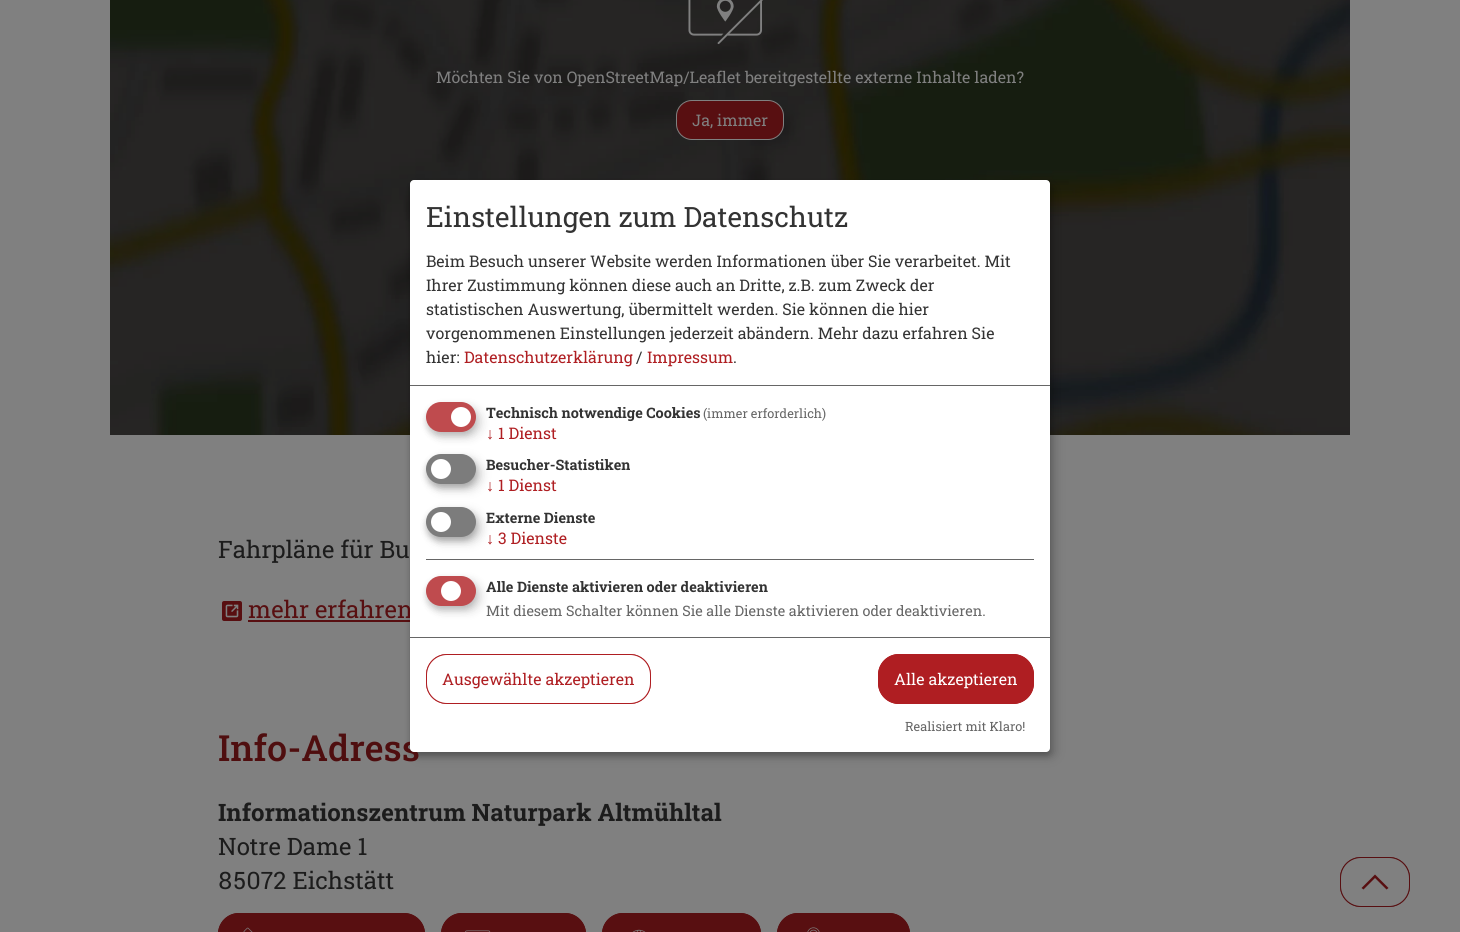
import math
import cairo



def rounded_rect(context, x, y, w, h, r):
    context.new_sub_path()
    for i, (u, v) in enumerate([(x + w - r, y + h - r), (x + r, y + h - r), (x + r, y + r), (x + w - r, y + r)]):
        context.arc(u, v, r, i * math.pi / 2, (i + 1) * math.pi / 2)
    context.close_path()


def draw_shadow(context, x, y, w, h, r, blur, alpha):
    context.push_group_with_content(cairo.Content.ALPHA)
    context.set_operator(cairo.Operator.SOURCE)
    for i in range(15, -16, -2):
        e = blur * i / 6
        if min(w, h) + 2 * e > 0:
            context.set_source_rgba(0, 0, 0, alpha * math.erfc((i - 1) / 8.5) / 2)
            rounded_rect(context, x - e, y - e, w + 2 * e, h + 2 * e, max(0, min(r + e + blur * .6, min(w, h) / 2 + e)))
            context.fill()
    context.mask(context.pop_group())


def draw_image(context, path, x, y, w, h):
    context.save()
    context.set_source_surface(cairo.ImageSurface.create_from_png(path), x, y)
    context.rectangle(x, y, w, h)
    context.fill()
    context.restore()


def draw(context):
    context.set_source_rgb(128 / 255, 128 / 255, 128 / 255)
    context.paint()
    draw_image(context, "images/1.png", 110, 0, 1240, 435)
    draw_image(context, "images/2.png", 688, 0, 75, 45)
    context.set_source_rgb(88 / 255, 15 / 255, 17 / 255)
    rounded_rect(context, 676.5, 100.5, 107, 39, 15.5)
    context.fill_preserve()
    context.set_source_rgb(128 / 255, 128 / 255, 128 / 255)
    context.set_line_width(1)
    context.stroke()
    context.set_source_rgb(88 / 255, 15 / 255, 17 / 255)
    rounded_rect(context, 222, 601, 20, 20, 2)
    context.fill()
    draw_image(context, "images/3.png", 225, 604, 14, 14)
    context.rectangle(248, 620, 165, 2)
    context.fill()
    rounded_rect(context, 218.5, 913.5, 206, 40, 20.5)
    context.stroke()
    rounded_rect(context, 218.5, 913.5, 206, 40, 20.5)
    context.fill_preserve()
    context.stroke()
    draw_image(context, "images/4.png", 243, 927, 10, 5)
    rounded_rect(context, 441.5, 913.5, 144, 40, 20.5)
    context.stroke()
    rounded_rect(context, 441.5, 913.5, 144, 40, 20.5)
    context.fill_preserve()
    context.stroke()
    draw_image(context, "images/5.png", 465, 930, 26, 2)
    rounded_rect(context, 602.5, 913.5, 158, 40, 20.5)
    context.stroke()
    rounded_rect(context, 602.5, 913.5, 158, 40, 20.5)
    context.fill_preserve()
    context.stroke()
    draw_image(context, "images/6.png", 632, 929, 14, 3)
    rounded_rect(context, 777.5, 913.5, 132, 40, 20.5)
    context.stroke()
    rounded_rect(context, 777.5, 913.5, 132, 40, 20.5)
    context.fill_preserve()
    context.stroke()
    draw_image(context, "images/7.png", 807, 927, 13, 5)
    context.set_source_rgb(0, 0, 0)
    draw_shadow(context, 415, 185, 640, 572, 4, 5, 0.19)
    draw_shadow(context, 410, 184, 640, 572, 4, 3, 0.2)
    rounded_rect(context, 1340.5, 857.5, 69, 49, 20.5)
    context.set_source_rgb(88 / 255, 15 / 255, 17 / 255)
    context.stroke()
    context.set_source_rgb(128 / 255, 128 / 255, 128 / 255)
    rounded_rect(context, 1340.5, 857.5, 69, 49, 20.5)
    context.fill_preserve()
    context.set_source_rgb(88 / 255, 15 / 255, 17 / 255)
    context.stroke()
    context.new_path()
    context.move_to(1375, 874.5)
    context.line_to(1388.5, 888)
    context.line_to(1386.5, 889.5)
    context.line_to(1375, 878)
    context.line_to(1363.5, 889.5)
    context.line_to(1361.5, 888)
    context.close_path()
    context.fill()
    context.select_font_face("Roboto Slab")
    context.set_font_size(16)
    context.set_source_rgb(128 / 255, 128 / 255, 128 / 255)
    context.move_to(436, 83)
    context.show_text("Möchten Sie von OpenStreetMap/Leaflet bereitgestellte externe Inhalte laden?")
    context.move_to(692, 126)
    context.show_text("Ja, immer")
    context.set_font_size(24)
    context.set_source_rgb(28 / 255, 28 / 255, 28 / 255)
    context.move_to(218, 558)
    context.show_text("Fahrpläne für Bu")
    context.set_source_rgb(88 / 255, 15 / 255, 17 / 255)
    context.move_to(248, 618)
    context.show_text("mehr erfahren")
    context.select_font_face("Roboto Slab Medium")
    context.set_font_size(36)
    context.set_source_rgb(79 / 255, 14 / 255, 15 / 255)
    context.move_to(218, 761)
    context.show_text("Info-Adress")
    context.select_font_face("Roboto Slab", cairo.FontSlant.NORMAL, cairo.FontWeight.BOLD)
    context.set_font_size(24)
    context.set_source_rgb(28 / 255, 28 / 255, 28 / 255)
    context.move_to(218, 821)
    context.show_text("Informationszentrum Naturpark Altmühltal")
    context.select_font_face("Roboto Slab")
    context.move_to(218, 855)
    context.show_text("Notre Dame 1")
    context.select_font_face("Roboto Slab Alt")
    context.move_to(218, 889)
    context.show_text("85072 Eichstätt")
    context.set_source_rgb(1, 1, 1)
    rounded_rect(context, 410, 180, 640, 572, 4)
    context.fill()
    context.set_source_rgb(102 / 255, 102 / 255, 102 / 255)
    context.rectangle(410, 385, 640, 1)
    context.fill()
    context.select_font_face("Roboto Slab")
    context.set_font_size(28)
    context.set_source_rgb(51 / 255, 51 / 255, 51 / 255)
    context.move_to(426, 227)
    context.show_text("Einstellungen zum Datenschutz")
    context.set_font_size(16)
    context.move_to(426, 267)
    context.show_text("Beim Besuch unserer Website werden Informationen über Sie verarbeitet. Mit")
    context.move_to(426, 291)
    context.show_text("Ihrer Zustimmung können diese auch an Dritte, z.B. zum Zweck der")
    context.move_to(426, 315)
    context.show_text("statistischen Auswertung, übermittelt werden. Sie können die hier")
    context.move_to(426, 339)
    context.show_text("vorgenommenen Einstellungen jederzeit abändern. Mehr dazu erfahren Sie")
    context.move_to(426, 363)
    context.show_text("hier:")
    context.set_source_rgb(175 / 255, 30 / 255, 34 / 255)
    context.move_to(464, 363)
    context.show_text("Datenschutzerklärung")
    context.set_source_rgb(51 / 255, 51 / 255, 51 / 255)
    context.move_to(636, 363)
    context.show_text("/")
    context.set_source_rgb(175 / 255, 30 / 255, 34 / 255)
    context.move_to(647, 363)
    context.show_text("Impressum")
    context.set_source_rgb(51 / 255, 51 / 255, 51 / 255)
    context.move_to(733, 363)
    context.show_text(".")
    context.set_source_rgb(0, 0, 0)
    draw_shadow(context, 431, 407, 50, 30, 15, 5, 0.15)
    context.set_source_rgb(51 / 255, 51 / 255, 51 / 255)
    draw_shadow(context, 426, 406, 50, 30, 15, 3, 0.2)
    context.set_source_rgb(191 / 255, 75 / 255, 78 / 255)
    rounded_rect(context, 426, 402, 50, 30, 15)
    context.fill()
    context.set_source_rgb(1, 1, 1)
    context.arc(461, 417, 10, 0, 2 * math.pi)
    context.fill()
    context.select_font_face("Roboto Slab", cairo.FontSlant.NORMAL, cairo.FontWeight.BOLD)
    context.set_font_size(14.4)
    context.set_source_rgb(51 / 255, 51 / 255, 51 / 255)
    context.move_to(486, 418)
    context.show_text("Technisch notwendige Cookies")
    context.select_font_face("Roboto Slab")
    context.set_font_size(12.75)
    context.set_source_rgb(102 / 255, 102 / 255, 102 / 255)
    context.move_to(703, 418)
    context.show_text("(immer erforderlich)")
    context.select_font_face("Liberation Serif")
    context.set_font_size(16)
    context.set_source_rgb(175 / 255, 30 / 255, 34 / 255)
    context.move_to(486, 439)
    context.show_text("↓")
    context.select_font_face("Roboto Slab")
    context.move_to(498, 439)
    context.show_text("1 Dienst")
    context.set_source_rgb(0, 0, 0)
    draw_shadow(context, 431, 459, 50, 30, 15, 5, 0.19)
    draw_shadow(context, 426, 458, 50, 30, 15, 3, 0.2)
    context.set_source_rgb(124 / 255, 124 / 255, 124 / 255)
    rounded_rect(context, 426, 454, 50, 30, 15)
    context.fill()
    context.set_source_rgb(1, 1, 1)
    context.arc(441, 469, 10, 0, 2 * math.pi)
    context.fill()
    context.select_font_face("Roboto Slab", cairo.FontSlant.NORMAL, cairo.FontWeight.BOLD)
    context.set_font_size(14.4)
    context.set_source_rgb(51 / 255, 51 / 255, 51 / 255)
    context.move_to(486, 470)
    context.show_text("Besucher-Statistiken")
    context.select_font_face("Liberation Serif")
    context.set_font_size(16)
    context.set_source_rgb(175 / 255, 30 / 255, 34 / 255)
    context.move_to(486, 491)
    context.show_text("↓")
    context.select_font_face("Roboto Slab")
    context.move_to(498, 491)
    context.show_text("1 Dienst")
    context.set_source_rgb(0, 0, 0)
    draw_shadow(context, 431, 512, 50, 30, 15, 5, 0.19)
    draw_shadow(context, 426, 511, 50, 30, 15, 3, 0.2)
    context.set_source_rgb(124 / 255, 124 / 255, 124 / 255)
    rounded_rect(context, 426, 507, 50, 30, 15)
    context.fill()
    context.set_source_rgb(1, 1, 1)
    context.arc(441, 522, 10, 0, 2 * math.pi)
    context.fill()
    context.select_font_face("Roboto Slab", cairo.FontSlant.NORMAL, cairo.FontWeight.BOLD)
    context.set_font_size(14.4)
    context.set_source_rgb(51 / 255, 51 / 255, 51 / 255)
    context.move_to(486, 523)
    context.show_text("Externe Dienste")
    context.select_font_face("Liberation Serif")
    context.set_font_size(16)
    context.set_source_rgb(175 / 255, 30 / 255, 34 / 255)
    context.move_to(486, 544)
    context.show_text("↓")
    context.select_font_face("Roboto Slab")
    context.move_to(498, 544)
    context.show_text("3 Dienste")
    context.set_source_rgb(102 / 255, 102 / 255, 102 / 255)
    context.rectangle(426, 559, 608, 1)
    context.fill()
    context.set_source_rgb(0, 0, 0)
    draw_shadow(context, 431, 581, 50, 30, 15, 5, 0.15)
    context.set_source_rgb(51 / 255, 51 / 255, 51 / 255)
    draw_shadow(context, 426, 580, 50, 30, 15, 3, 0.2)
    context.set_source_rgb(191 / 255, 75 / 255, 78 / 255)
    rounded_rect(context, 426, 576, 50, 30, 15)
    context.fill()
    context.set_source_rgb(1, 1, 1)
    context.arc(451, 591, 10, 0, 2 * math.pi)
    context.fill()
    context.select_font_face("Roboto Slab", cairo.FontSlant.NORMAL, cairo.FontWeight.BOLD)
    context.set_font_size(14.4)
    context.set_source_rgb(51 / 255, 51 / 255, 51 / 255)
    context.move_to(486, 592)
    context.show_text("Alle Dienste aktivieren oder deaktivieren")
    context.select_font_face("Roboto Slab")
    context.set_source_rgb(102 / 255, 102 / 255, 102 / 255)
    context.move_to(486, 616)
    context.show_text("Mit diesem Schalter können Sie alle Dienste aktivieren oder deaktivieren.")
    context.rectangle(410, 637, 640, 1)
    context.fill()
    rounded_rect(context, 426.5, 654.5, 224, 49, 20.5)
    context.set_source_rgb(175 / 255, 30 / 255, 34 / 255)
    context.stroke()
    context.set_source_rgb(1, 1, 1)
    rounded_rect(context, 426.5, 654.5, 224, 49, 20.5)
    context.fill_preserve()
    context.set_source_rgb(175 / 255, 30 / 255, 34 / 255)
    context.stroke()
    context.set_font_size(16)
    context.move_to(442, 685)
    context.show_text("Ausgewählte akzeptieren")
    rounded_rect(context, 878.5, 654.5, 155, 49, 20.5)
    context.stroke()
    rounded_rect(context, 878.5, 654.5, 155, 49, 20.5)
    context.fill_preserve()
    context.stroke()
    context.set_source_rgb(1, 1, 1)
    context.move_to(894, 685)
    context.show_text("Alle akzeptieren")
    context.set_font_size(12.75)
    context.set_source_rgb(102 / 255, 102 / 255, 102 / 255)
    context.move_to(905, 731)
    context.show_text("Realisiert mit Klaro!")


surface = cairo.ImageSurface(cairo.Format.RGB24, 1460, 932)
context = cairo.Context(surface)
options = cairo.FontOptions()
options.set_hint_metrics(cairo.HintMetrics.OFF)
options.set_hint_style(cairo.HintStyle.NONE)
context.set_font_options(options)
context.set_miter_limit(4)
draw(context)
surface.write_to_png("out.png")
